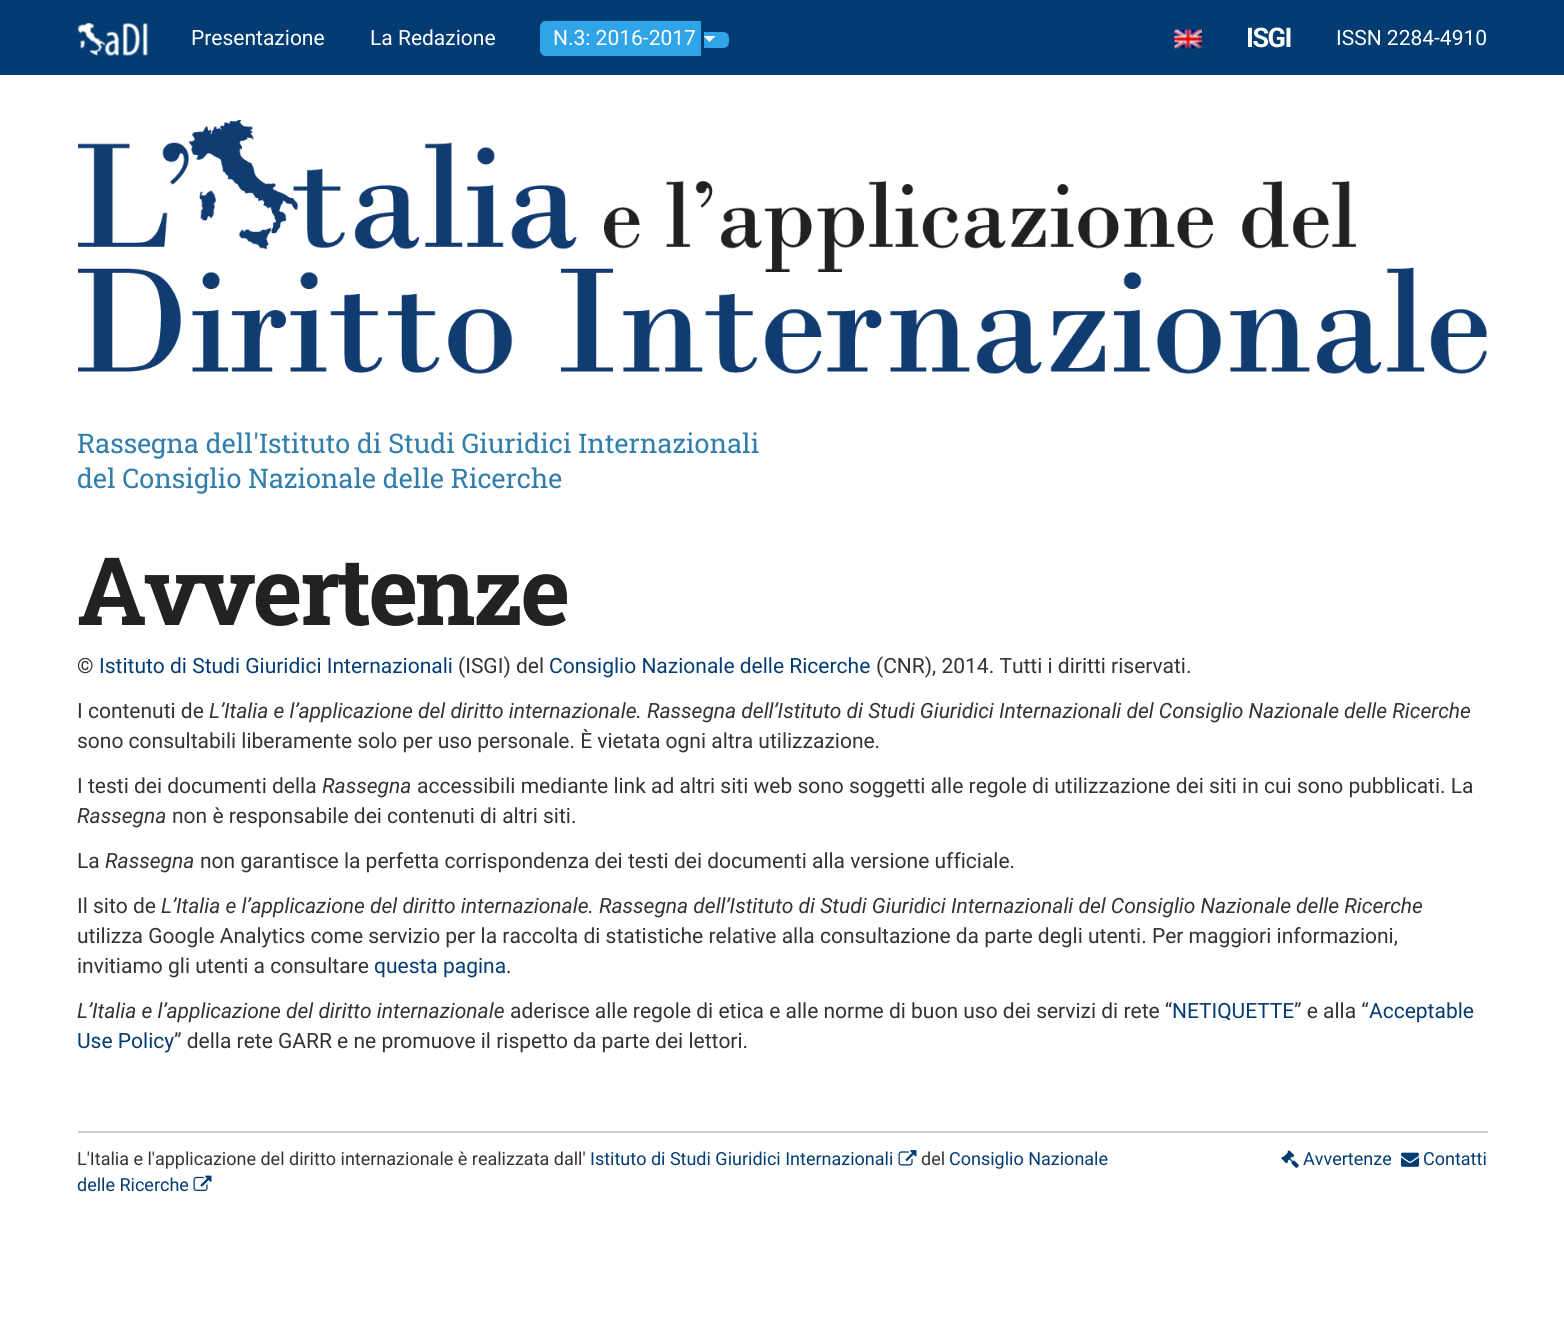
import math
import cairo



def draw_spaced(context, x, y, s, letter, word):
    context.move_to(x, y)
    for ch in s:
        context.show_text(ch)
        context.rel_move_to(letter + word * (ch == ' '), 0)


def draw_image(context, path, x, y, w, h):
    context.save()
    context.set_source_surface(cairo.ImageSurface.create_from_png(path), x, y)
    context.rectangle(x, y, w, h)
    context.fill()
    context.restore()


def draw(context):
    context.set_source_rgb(1, 1, 1)
    context.paint()
    context.set_source_rgb(3 / 255, 60 / 255, 115 / 255)
    context.rectangle(0, 0, 1564, 75)
    context.fill()
    draw_image(context, "images/1.png", 77, 23, 71, 33)
    context.set_source_rgb(47 / 255, 164 / 255, 231 / 255)
    context.new_path()
    context.move_to(546, 21)
    context.line_to(701, 21)
    context.line_to(701, 56)
    context.line_to(546, 56)
    context.curve_to(542.5, 56, 540, 53.5, 540, 50)
    context.line_to(540, 27)
    context.curve_to(540, 23.5, 542.5, 21, 546, 21)
    context.close_path()
    context.fill()
    context.new_path()
    context.move_to(704, 32)
    context.line_to(723, 32)
    context.curve_to(726.5, 32, 729, 34.5, 729, 38)
    context.line_to(729, 42)
    context.curve_to(729, 45.5, 726.5, 48, 723, 48)
    context.line_to(704, 48)
    context.close_path()
    context.fill()
    context.set_source_rgb(1, 1, 1)
    context.new_path()
    context.move_to(703.5, 36)
    context.line_to(715.5, 36)
    context.line_to(709.5, 42)
    context.close_path()
    context.fill()
    draw_image(context, "images/2.png", 1174, 29, 28, 20)
    draw_image(context, "images/3.png", 78, 120, 1409, 254)
    context.set_source_rgb(204 / 255, 204 / 255, 204 / 255)
    context.rectangle(78, 1131, 1410, 2)
    context.fill()
    draw_image(context, "images/4.png", 193, 1175, 19, 16)
    draw_image(context, "images/5.png", 898, 1150, 19, 16)
    draw_image(context, "images/6.png", 1281, 1150, 18, 18)
    draw_image(context, "images/7.png", 1401, 1152, 18, 15)
    context.select_font_face("Roboto")
    context.set_font_size(21)
    context.set_source_rgb(1, 1, 1)
    context.move_to(191, 45)
    context.show_text("Presentazione")
    context.move_to(370, 45)
    context.show_text("La Redazione")
    context.move_to(553, 45)
    context.show_text("N.3: 2016-2017")
    context.select_font_face("Roboto", cairo.FontSlant.NORMAL, cairo.FontWeight.BOLD)
    context.set_font_size(27)
    draw_spaced(context, 1246, 47, "ISGI", -1.5, 0)
    context.select_font_face("Roboto")
    context.set_font_size(21)
    context.move_to(1336, 45)
    context.show_text("ISSN 2284-4910")
    context.select_font_face("Roboto Slab")
    context.set_font_size(27)
    context.set_source_rgb(49 / 255, 126 / 255, 172 / 255)
    context.move_to(77, 453)
    context.show_text("Rassegna dell'Istituto di Studi Giuridici Internazionali")
    context.move_to(77, 488)
    context.show_text("del Consiglio Nazionale delle Ricerche")
    context.select_font_face("Roboto Slab", cairo.FontSlant.NORMAL, cairo.FontWeight.BOLD)
    context.set_font_size(94.5)
    context.set_source_rgb(34 / 255, 34 / 255, 34 / 255)
    draw_spaced(context, 77, 625, "Avvertenze", -3, 0)
    context.select_font_face("Roboto")
    context.set_font_size(21)
    context.set_source_rgb(51 / 255, 51 / 255, 51 / 255)
    context.move_to(77, 673)
    context.show_text("©")
    context.set_source_rgb(3 / 255, 60 / 255, 115 / 255)
    context.move_to(99, 673)
    context.show_text("Istituto di Studi Giuridici Internazionali")
    context.set_source_rgb(51 / 255, 51 / 255, 51 / 255)
    context.move_to(458, 673)
    context.show_text("(ISGI) del")
    context.set_source_rgb(3 / 255, 60 / 255, 115 / 255)
    context.move_to(549, 673)
    context.show_text("Consiglio Nazionale delle Ricerche")
    context.set_source_rgb(51 / 255, 51 / 255, 51 / 255)
    context.move_to(876, 673)
    context.show_text("(CNR), 2014. Tutti i diritti riservati.")
    context.move_to(77, 718)
    context.show_text("I contenuti de")
    context.select_font_face("Roboto", cairo.FontSlant.ITALIC)
    context.move_to(209, 718)
    context.show_text("L’Italia e l’applicazione del diritto internazionale. Rassegna dell’Istituto di Studi Giuridici Internazionali del Consiglio Nazionale delle Ricerche")
    context.select_font_face("Roboto")
    context.move_to(77, 748)
    context.show_text("sono consultabili liberamente solo per uso personale. È vietata ogni altra utilizzazione.")
    context.move_to(77, 793)
    context.show_text("I testi dei documenti della")
    context.select_font_face("Roboto", cairo.FontSlant.ITALIC)
    context.move_to(322, 793)
    context.show_text("Rassegna")
    context.select_font_face("Roboto")
    context.move_to(417, 793)
    context.show_text("accessibili mediante link ad altri siti web sono soggetti alle regole di utilizzazione dei siti in cui sono pubblicati. La")
    context.select_font_face("Roboto", cairo.FontSlant.ITALIC)
    context.move_to(77, 823)
    context.show_text("Rassegna")
    context.select_font_face("Roboto")
    context.move_to(172, 823)
    context.show_text("non è responsabile dei contenuti di altri siti.")
    context.move_to(77, 868)
    context.show_text("La")
    context.select_font_face("Roboto", cairo.FontSlant.ITALIC)
    context.move_to(105, 868)
    context.show_text("Rassegna")
    context.select_font_face("Roboto")
    context.move_to(200, 868)
    context.show_text("non garantisce la perfetta corrispondenza dei testi dei documenti alla versione ufficiale.")
    context.move_to(77, 913)
    context.show_text("Il sito de")
    context.select_font_face("Roboto", cairo.FontSlant.ITALIC)
    context.move_to(161, 913)
    context.show_text("L’Italia e l’applicazione del diritto internazionale. Rassegna dell’Istituto di Studi Giuridici Internazionali del Consiglio Nazionale delle Ricerche")
    context.select_font_face("Roboto")
    context.move_to(77, 943)
    context.show_text("utilizza Google Analytics come servizio per la raccolta di statistiche relative alla consultazione da parte degli utenti. Per maggiori informazioni,")
    context.move_to(77, 973)
    context.show_text("invitiamo gli utenti a consultare")
    context.set_source_rgb(3 / 255, 60 / 255, 115 / 255)
    context.move_to(374, 973)
    context.show_text("questa pagina")
    context.set_source_rgb(51 / 255, 51 / 255, 51 / 255)
    context.move_to(506, 973)
    context.show_text(".")
    context.select_font_face("Roboto", cairo.FontSlant.ITALIC)
    context.move_to(77, 1018)
    context.show_text("L’Italia e l’applicazione del diritto internazionale")
    context.select_font_face("Roboto")
    context.move_to(510, 1018)
    context.show_text("aderisce alle regole di etica e alle norme di buon uso dei servizi di rete “")
    context.set_source_rgb(3 / 255, 60 / 255, 115 / 255)
    context.move_to(1172, 1018)
    context.show_text("NETIQUETTE")
    context.set_source_rgb(51 / 255, 51 / 255, 51 / 255)
    context.move_to(1294, 1018)
    context.show_text("” e alla “")
    context.set_source_rgb(3 / 255, 60 / 255, 115 / 255)
    context.move_to(1369, 1018)
    context.show_text("Acceptable")
    context.move_to(77, 1048)
    context.show_text("Use Policy")
    context.set_source_rgb(51 / 255, 51 / 255, 51 / 255)
    context.move_to(174, 1048)
    context.show_text("” della rete GARR e ne promuove il rispetto da parte dei lettori.")
    context.set_font_size(18)
    context.move_to(77, 1165)
    context.show_text("L'Italia e l'applicazione del diritto internazionale è realizzata dall'")
    context.set_source_rgb(3 / 255, 60 / 255, 115 / 255)
    context.move_to(949, 1165)
    context.show_text("Consiglio Nazionale")
    context.move_to(77, 1191)
    context.show_text("delle Ricerche")
    context.move_to(590, 1165)
    context.show_text("Istituto di Studi Giuridici Internazionali")
    context.set_source_rgb(51 / 255, 51 / 255, 51 / 255)
    context.move_to(921, 1165)
    context.show_text("del")
    context.set_source_rgb(3 / 255, 60 / 255, 115 / 255)
    context.move_to(1303, 1165)
    context.show_text("Avvertenze")
    context.move_to(1423, 1165)
    context.show_text("Contatti")


surface = cairo.ImageSurface(cairo.Format.RGB24, 1564, 1326)
context = cairo.Context(surface)
options = cairo.FontOptions()
options.set_hint_metrics(cairo.HintMetrics.OFF)
options.set_hint_style(cairo.HintStyle.NONE)
context.set_font_options(options)
context.set_miter_limit(4)
draw(context)
surface.write_to_png("out.png")
